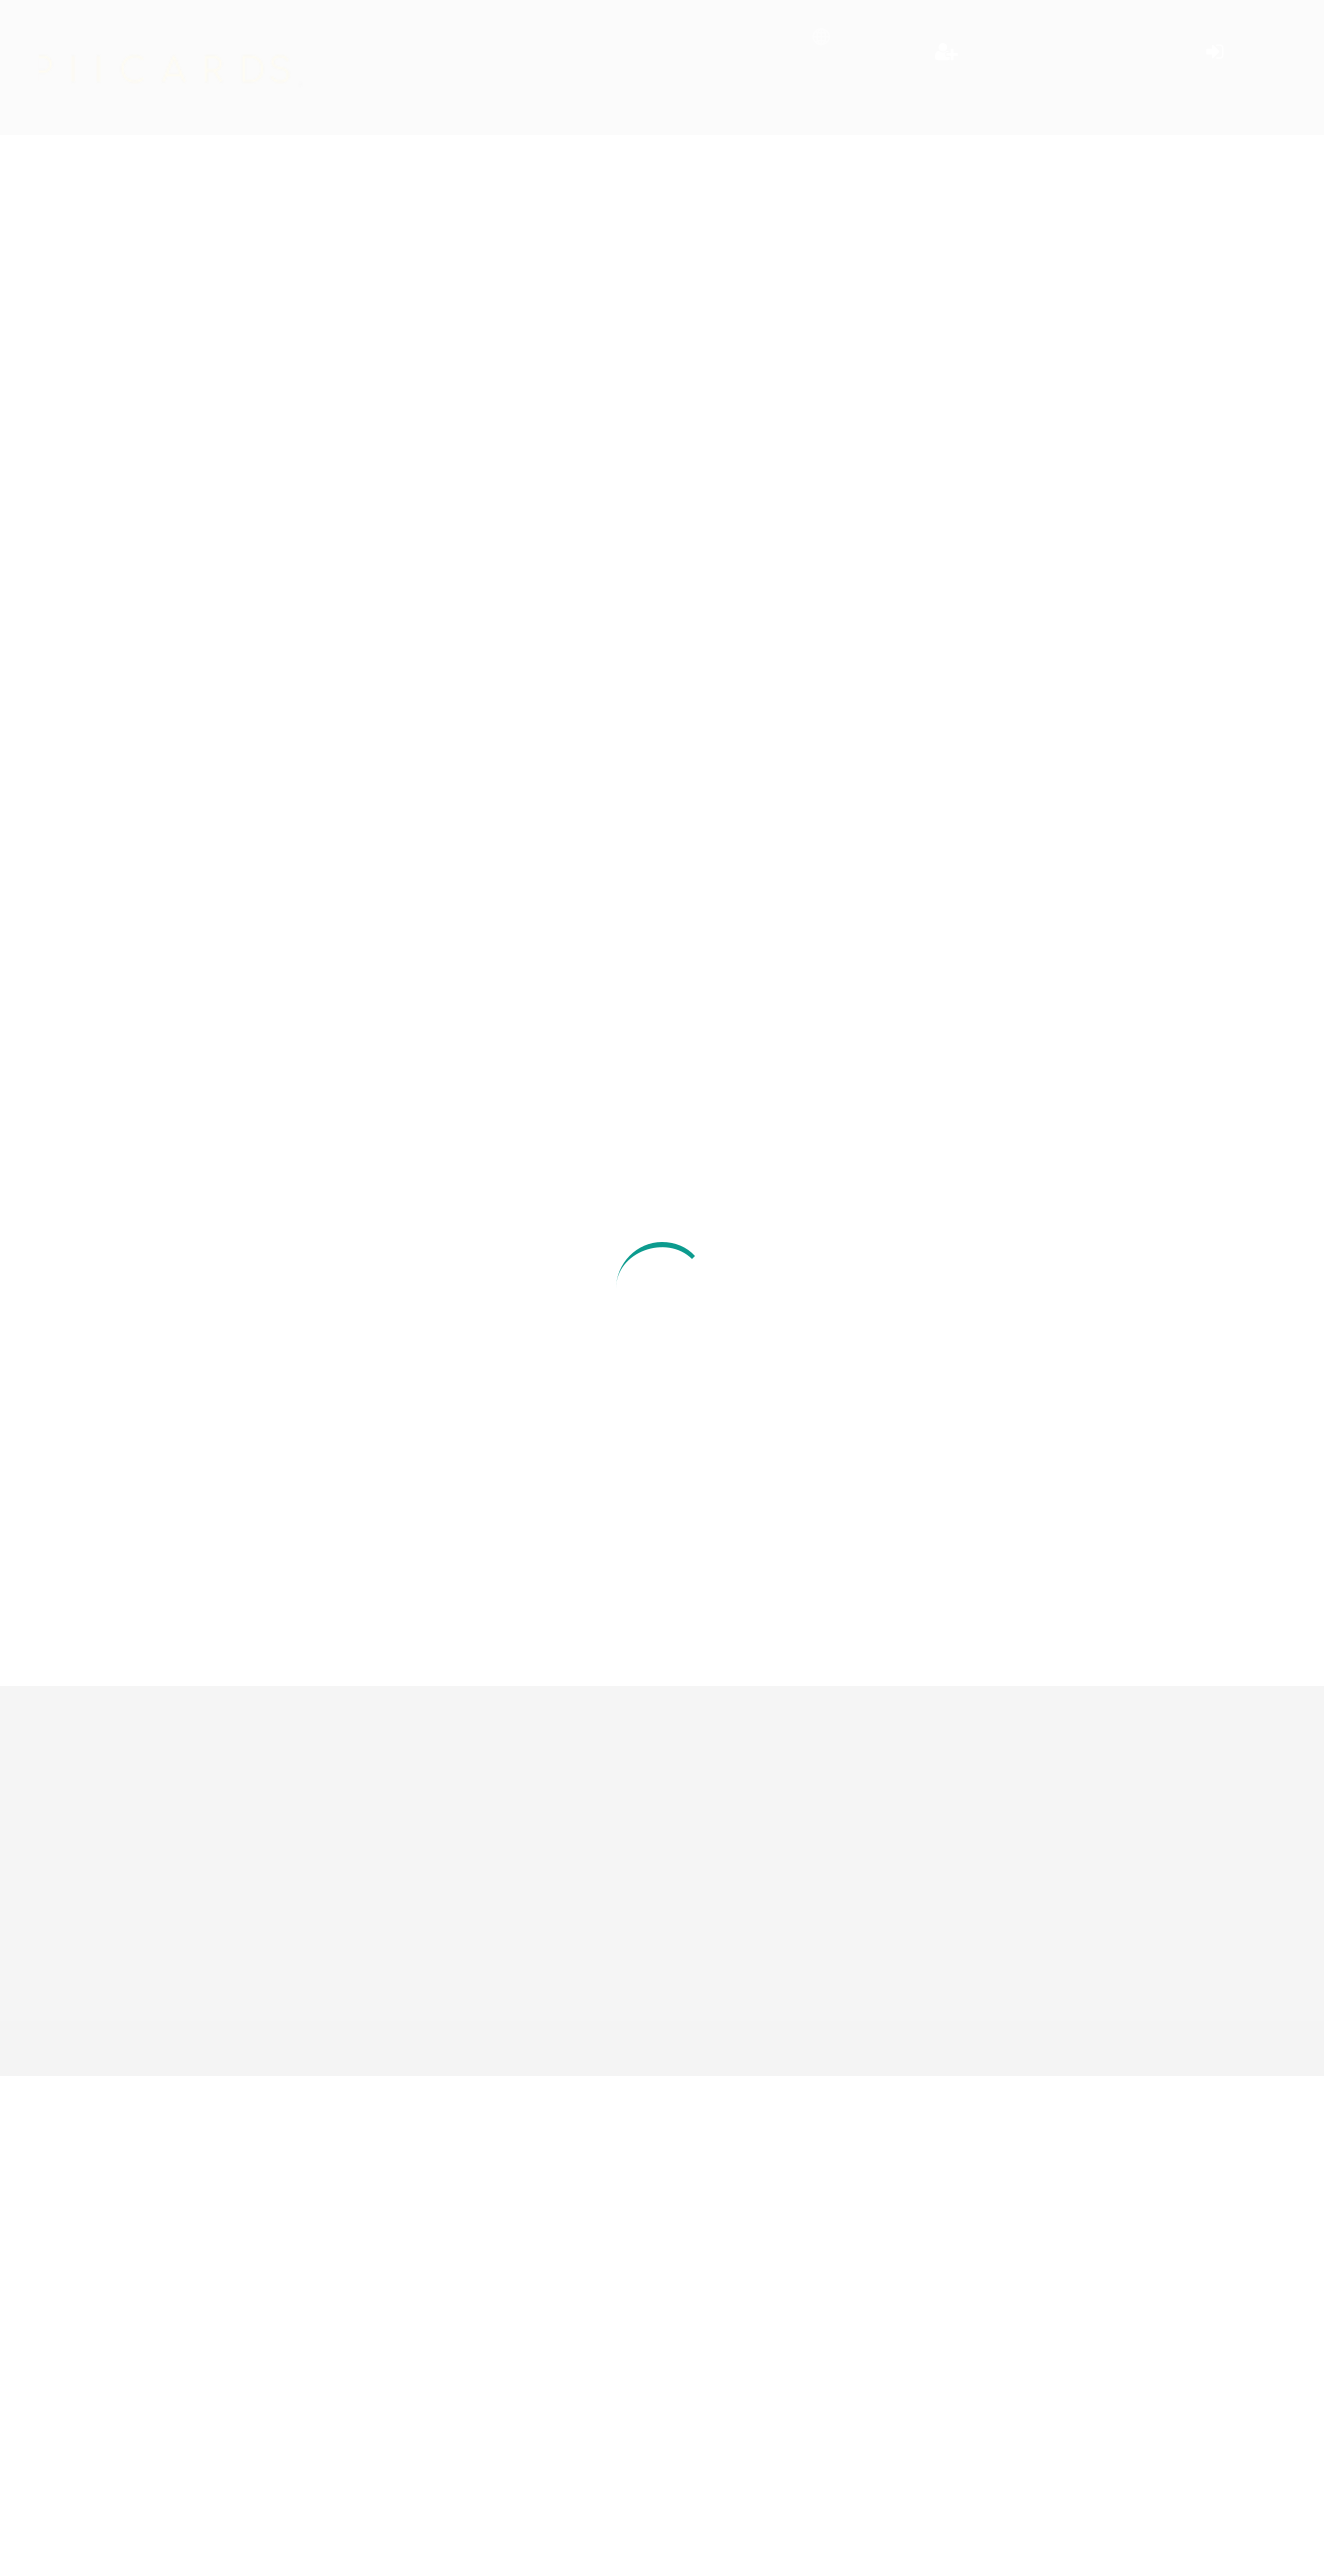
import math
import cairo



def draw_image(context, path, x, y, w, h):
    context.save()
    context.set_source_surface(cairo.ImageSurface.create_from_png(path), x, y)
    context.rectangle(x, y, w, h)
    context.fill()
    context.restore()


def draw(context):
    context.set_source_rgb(1, 1, 1)
    context.paint()
    context.set_source_rgb(251 / 255, 251 / 255, 251 / 255)
    context.rectangle(0, 0, 1324, 135)
    context.fill()
    draw_image(context, "images/1.png", 812, 28, 18, 18)
    draw_image(context, "images/2.png", 935, 43, 23, 18)
    draw_image(context, "images/3.png", 1206, 44, 18, 15)
    draw_image(context, "images/4.png", 38, 54, 265, 35)
    context.set_source_rgb(12 / 255, 155 / 255, 142 / 255)
    context.new_path()
    context.move_to(662, 1242)
    context.curve_to(675, 1242, 687, 1247, 695, 1256)
    context.line_to(692, 1259)
    context.curve_to(667, 1234, 616, 1251, 616, 1289)
    context.curve_to(616, 1263, 637, 1242, 662, 1242)
    context.close_path()
    context.fill()
    context.set_source_rgb(245 / 255, 245 / 255, 245 / 255)
    context.rectangle(0, 1686, 1324, 335)
    context.fill()
    context.set_source_rgb(244 / 255, 244 / 255, 244 / 255)
    context.rectangle(0, 2021, 1324, 55)
    context.fill()


surface = cairo.ImageSurface(cairo.Format.RGB24, 1324, 2576)
context = cairo.Context(surface)
options = cairo.FontOptions()
options.set_hint_metrics(cairo.HintMetrics.OFF)
options.set_hint_style(cairo.HintStyle.NONE)
context.set_font_options(options)
context.set_miter_limit(4)
draw(context)
surface.write_to_png("out.png")
